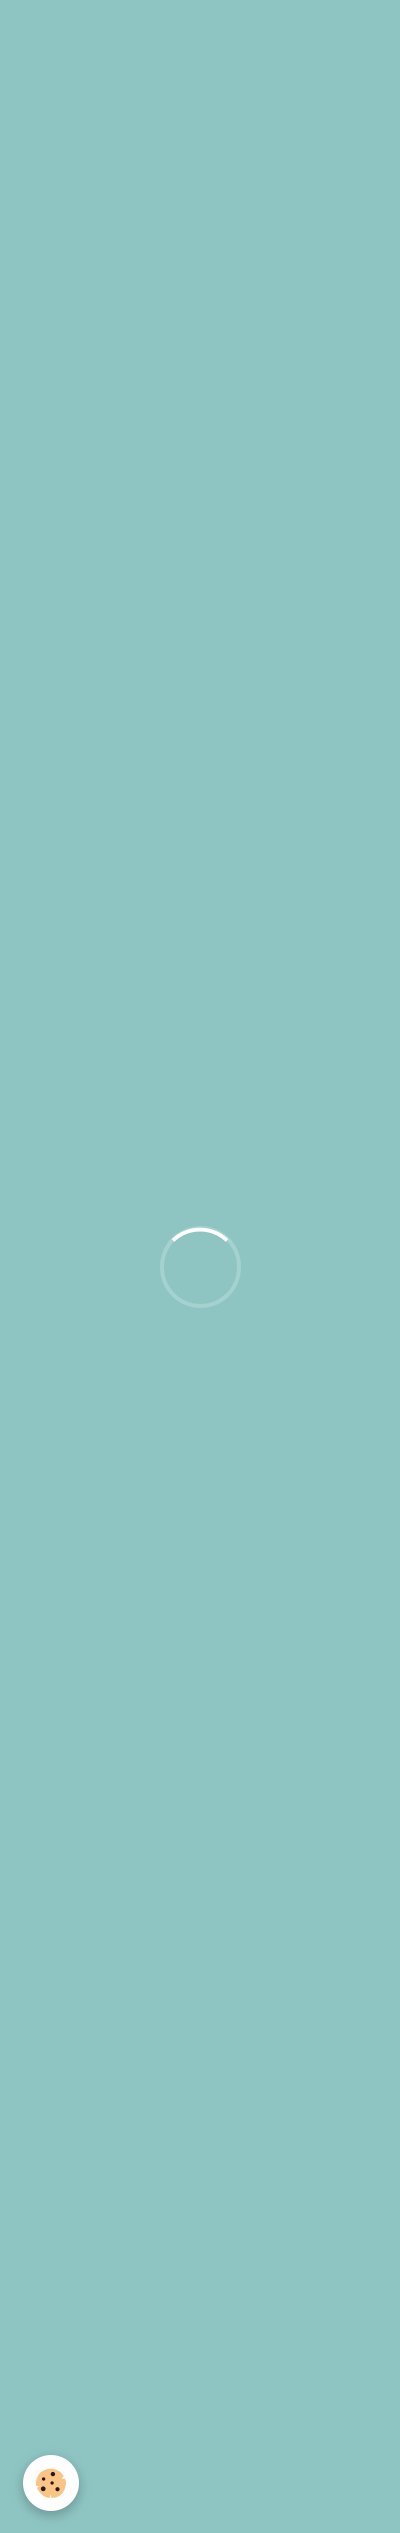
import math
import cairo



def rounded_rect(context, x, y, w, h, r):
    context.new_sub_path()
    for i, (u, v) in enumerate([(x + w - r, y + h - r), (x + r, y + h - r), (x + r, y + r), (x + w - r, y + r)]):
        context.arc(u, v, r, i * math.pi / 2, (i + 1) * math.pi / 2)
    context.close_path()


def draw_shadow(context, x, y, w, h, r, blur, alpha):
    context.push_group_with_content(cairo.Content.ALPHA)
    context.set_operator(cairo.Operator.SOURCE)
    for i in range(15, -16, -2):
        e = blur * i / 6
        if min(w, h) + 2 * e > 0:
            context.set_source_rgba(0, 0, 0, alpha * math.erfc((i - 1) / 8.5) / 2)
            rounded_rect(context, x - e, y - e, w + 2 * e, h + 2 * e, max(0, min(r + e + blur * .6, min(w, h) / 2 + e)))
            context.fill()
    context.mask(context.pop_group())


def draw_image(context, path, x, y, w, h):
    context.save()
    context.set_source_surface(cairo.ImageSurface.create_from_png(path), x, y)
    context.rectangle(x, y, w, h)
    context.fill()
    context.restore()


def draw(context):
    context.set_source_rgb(142 / 255, 197 / 255, 195 / 255)
    context.paint()
    context.new_path()
    context.move_to(173, 1240.5)
    context.curve_to(187.5, 1226, 212.5, 1226, 227, 1240.5)
    context.set_source_rgb(1, 1, 1)
    context.set_line_width(3.8)
    context.stroke()
    rounded_rect(context, 162, 1228, 77, 78, 38.5)
    context.set_source_rgba(1, 1, 1, 0.2)
    context.set_line_width(4)
    context.stroke()
    context.set_source_rgb(0, 0, 0)
    draw_shadow(context, 23, 2459, 56, 56, 28, 6, 0.24)
    context.set_source_rgb(1, 1, 1)
    context.arc(51, 2483, 28, 0, 2 * math.pi)
    context.fill()
    draw_image(context, "images/1.png", 36, 2468, 30, 30)


surface = cairo.ImageSurface(cairo.Format.RGB24, 400, 2533)
context = cairo.Context(surface)
options = cairo.FontOptions()
options.set_hint_metrics(cairo.HintMetrics.OFF)
options.set_hint_style(cairo.HintStyle.NONE)
context.set_font_options(options)
context.set_miter_limit(4)
draw(context)
surface.write_to_png("out.png")
